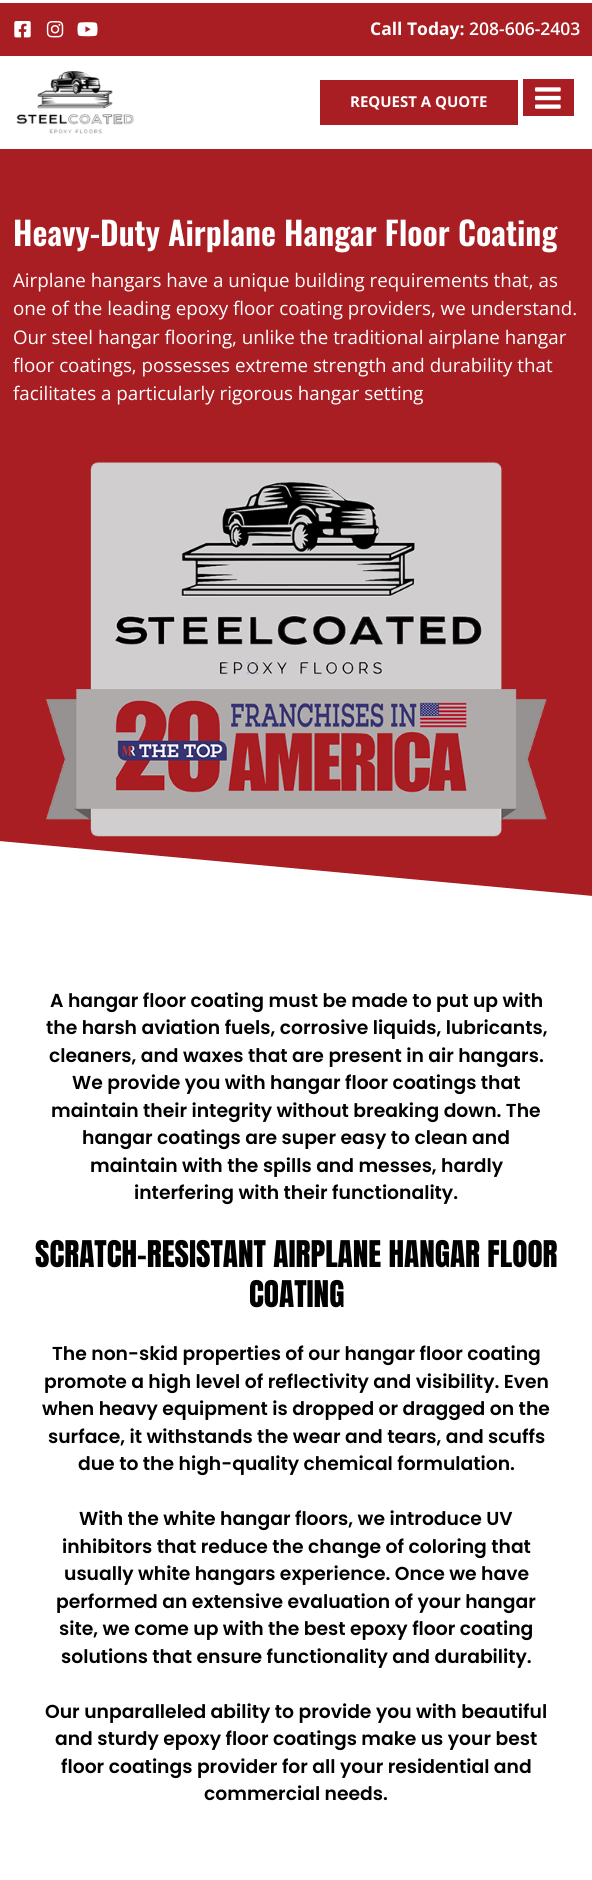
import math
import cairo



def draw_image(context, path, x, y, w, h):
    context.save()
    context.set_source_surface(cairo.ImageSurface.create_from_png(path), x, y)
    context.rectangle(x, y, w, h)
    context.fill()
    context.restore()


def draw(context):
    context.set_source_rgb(1, 1, 1)
    context.paint()
    context.set_source_rgb(168 / 255, 30 / 255, 35 / 255)
    context.rectangle(0, 3, 592, 53)
    context.fill()
    draw_image(context, "images/1.png", 14, 21, 17, 17)
    draw_image(context, "images/2.png", 46, 21, 18, 17)
    draw_image(context, "images/3.png", 77, 22, 21, 15)
    draw_image(context, "images/4.png", 16, 71, 118, 63)
    context.rectangle(320, 80, 198, 45)
    context.fill()
    context.rectangle(523, 79, 51, 37)
    context.fill()
    draw_image(context, "images/5.png", 535, 87, 26, 22)
    context.rectangle(0, 149, 592, 747)
    context.fill()
    draw_image(context, "images/6.png", 46, 462, 501, 375)
    context.set_source_rgb(1, 1, 1)
    context.new_path()
    context.move_to(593, 896)
    context.line_to(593, 900)
    context.line_to(-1, 900)
    context.line_to(-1, 841)
    context.close_path()
    context.fill()
    context.select_font_face("Open Sans", cairo.FontSlant.NORMAL, cairo.FontWeight.BOLD)
    context.set_font_size(17.5)
    context.move_to(370, 35)
    context.show_text("Call Today:")
    context.select_font_face("Open Sans SemiBold")
    context.move_to(469, 35)
    context.show_text("208-606-2403")
    context.select_font_face("Open Sans", cairo.FontSlant.NORMAL, cairo.FontWeight.BOLD)
    context.set_font_size(15)
    context.move_to(350, 107)
    context.show_text("REQUEST A QUOTE")
    context.select_font_face("Oswald SemiBold")
    context.set_font_size(32.5)
    context.move_to(13, 246)
    context.show_text("Heavy-Duty Airplane Hangar Floor Coating")
    context.select_font_face("Open Sans")
    context.set_font_size(18.75)
    context.move_to(13, 287)
    context.show_text("Airplane hangars have a unique building requirements that, as")
    context.move_to(13, 315)
    context.show_text("one of the leading epoxy floor coating providers, we understand.")
    context.move_to(13, 344)
    context.show_text("Our steel hangar flooring, unlike the traditional airplane hangar")
    context.move_to(13, 372)
    context.show_text("floor coatings, possesses extreme strength and durability that")
    context.move_to(13, 400)
    context.show_text("facilitates a particularly rigorous hangar setting")
    context.select_font_face("Poppins SemiBold")
    context.set_source_rgb(0, 0, 0)
    context.move_to(50, 1007)
    context.show_text("A hangar floor coating must be made to put up with")
    context.move_to(46, 1034)
    context.show_text("the harsh aviation fuels, corrosive liquids, lubricants,")
    context.move_to(49, 1062)
    context.show_text("cleaners, and waxes that are present in air hangars.")
    context.move_to(72, 1089)
    context.show_text("We provide you with hangar floor coatings that")
    context.move_to(51, 1117)
    context.show_text("maintain their integrity without breaking down. The")
    context.move_to(82, 1144)
    context.show_text("hangar coatings are super easy to clean and")
    context.move_to(90, 1172)
    context.show_text("maintain with the spills and messes, hardly")
    context.move_to(134, 1199)
    context.show_text("interfering with their functionality.")
    context.select_font_face("Anton")
    context.set_font_size(31.25)
    context.move_to(35, 1267)
    context.show_text("SCRATCH-RESISTANT AIRPLANE HANGAR FLOOR")
    context.move_to(249, 1307)
    context.show_text("COATING")
    context.select_font_face("Poppins SemiBold")
    context.set_font_size(18.75)
    context.move_to(52, 1360)
    context.show_text("The non-skid properties of our hangar floor coating")
    context.move_to(44, 1388)
    context.show_text("promote a high level of reflectivity and visibility. Even")
    context.move_to(42, 1415)
    context.show_text("when heavy equipment is dropped or dragged on the")
    context.move_to(48, 1443)
    context.show_text("surface, it withstands the wear and tears, and scuffs")
    context.move_to(78, 1470)
    context.show_text("due to the high-quality chemical formulation.")
    context.move_to(79, 1525)
    context.show_text("With the white hangar floors, we introduce UV")
    context.move_to(62, 1553)
    context.show_text("inhibitors that reduce the change of coloring that")
    context.move_to(64, 1580)
    context.show_text("usually white hangars experience. Once we have")
    context.move_to(56, 1608)
    context.show_text("performed an extensive evaluation of your hangar")
    context.move_to(59, 1635)
    context.show_text("site, we come up with the best epoxy floor coating")
    context.move_to(61, 1663)
    context.show_text("solutions that ensure functionality and durability.")
    context.move_to(45, 1718)
    context.show_text("Our unparalleled ability to provide you with beautiful")
    context.move_to(55, 1745)
    context.show_text("and sturdy epoxy floor coatings make us your best")
    context.move_to(61, 1773)
    context.show_text("floor coatings provider for all your residential and")
    context.move_to(204, 1800)
    context.show_text("commercial needs.")


surface = cairo.ImageSurface(cairo.Format.RGB24, 592, 1880)
context = cairo.Context(surface)
options = cairo.FontOptions()
options.set_hint_metrics(cairo.HintMetrics.OFF)
options.set_hint_style(cairo.HintStyle.NONE)
context.set_font_options(options)
context.set_miter_limit(4)
draw(context)
surface.write_to_png("out.png")
